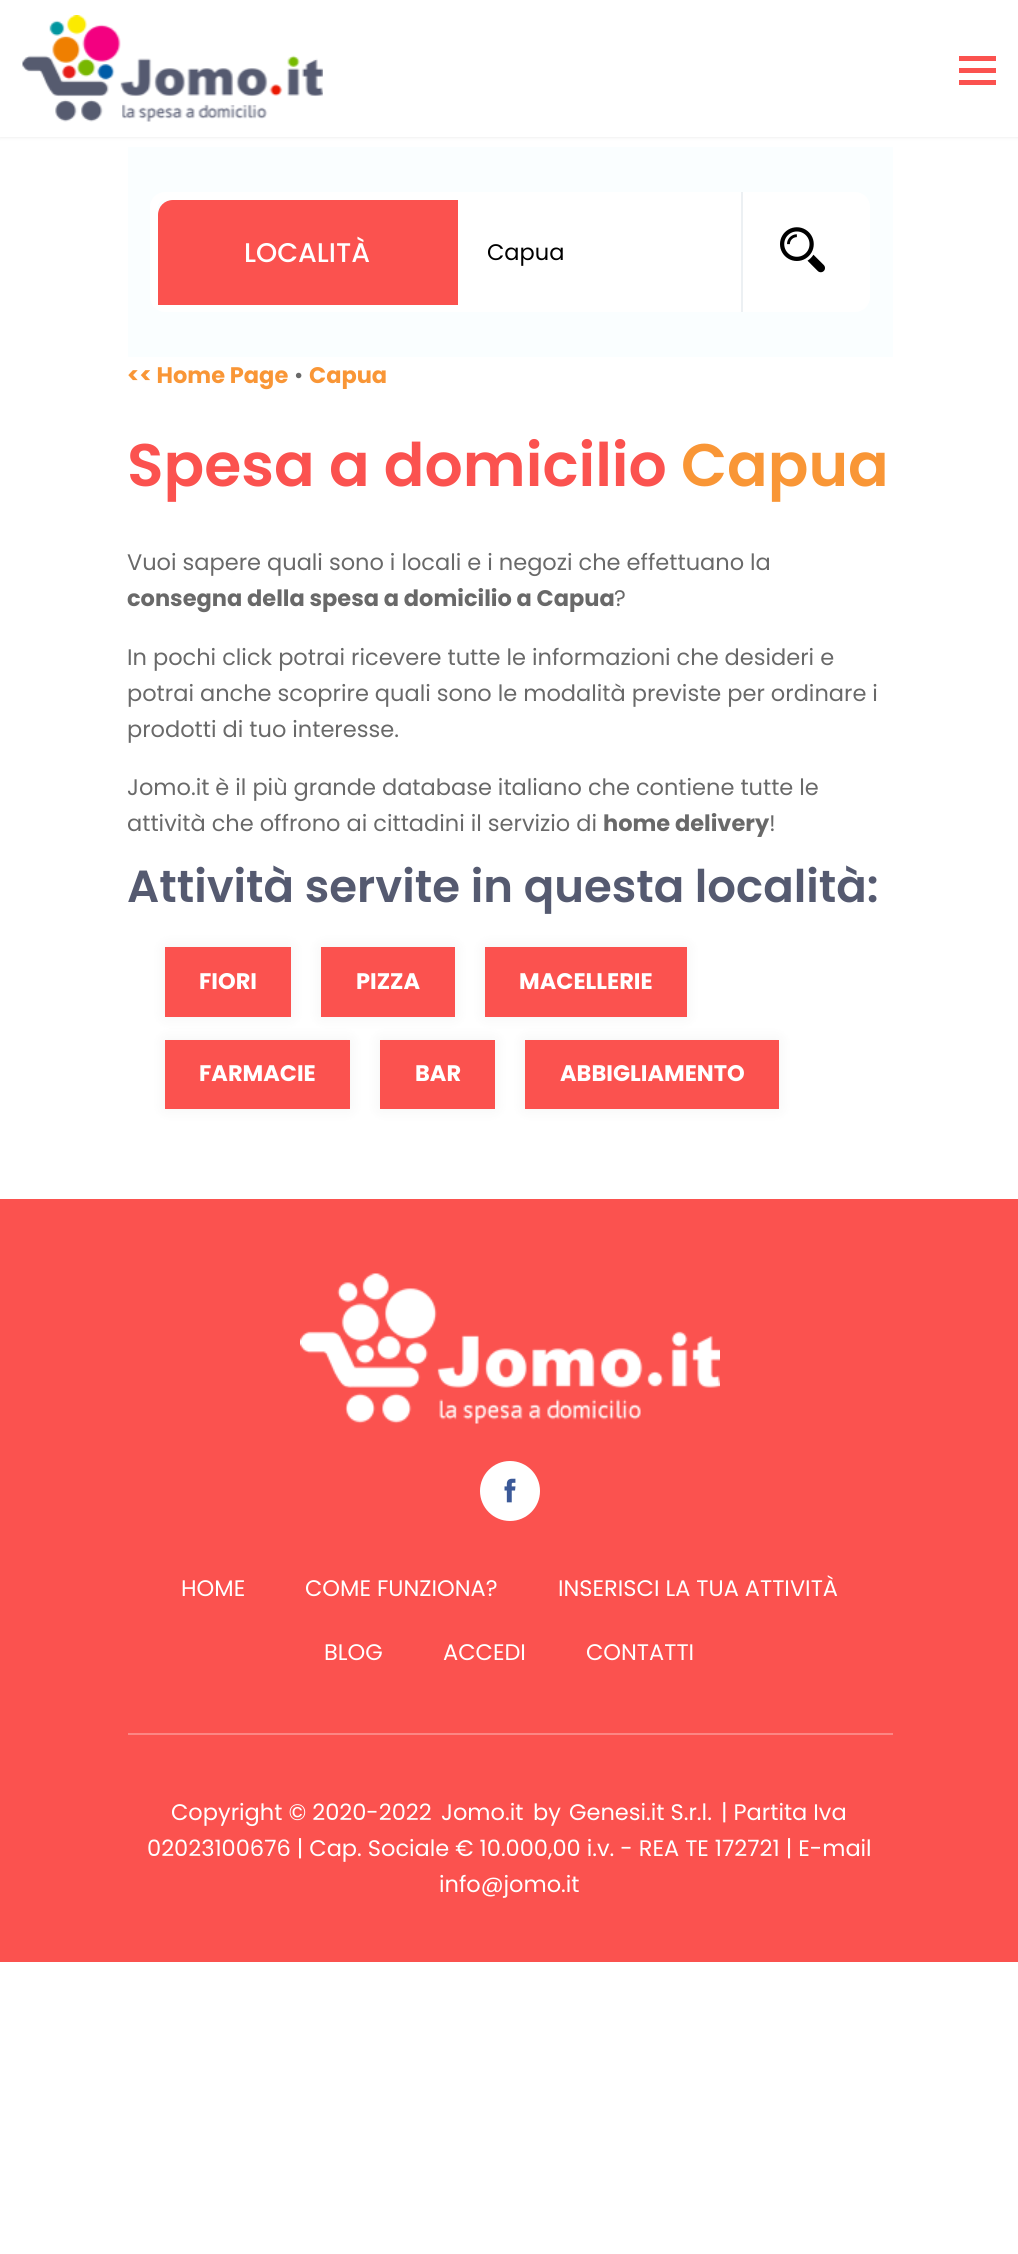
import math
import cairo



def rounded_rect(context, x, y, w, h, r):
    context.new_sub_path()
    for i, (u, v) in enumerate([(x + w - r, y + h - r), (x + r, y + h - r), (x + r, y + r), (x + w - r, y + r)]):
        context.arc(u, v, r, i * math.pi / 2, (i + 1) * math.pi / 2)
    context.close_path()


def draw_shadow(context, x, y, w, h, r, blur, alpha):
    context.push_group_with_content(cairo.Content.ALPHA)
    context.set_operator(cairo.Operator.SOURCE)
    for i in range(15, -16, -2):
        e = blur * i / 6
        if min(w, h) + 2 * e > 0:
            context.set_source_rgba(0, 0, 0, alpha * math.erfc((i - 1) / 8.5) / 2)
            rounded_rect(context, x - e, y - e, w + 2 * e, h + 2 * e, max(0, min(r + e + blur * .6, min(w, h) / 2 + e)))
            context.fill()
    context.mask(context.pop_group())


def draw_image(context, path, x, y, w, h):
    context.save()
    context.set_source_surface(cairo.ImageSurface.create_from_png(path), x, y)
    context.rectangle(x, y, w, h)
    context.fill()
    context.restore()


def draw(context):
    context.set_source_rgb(1, 1, 1)
    context.paint()
    context.set_source_rgb(0, 0, 0)
    draw_shadow(context, 0, 0, 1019, 137, 0, 2, 0.1)
    context.set_source_rgb(1, 1, 1)
    context.rectangle(0, 0, 1018, 137)
    context.fill()
    draw_image(context, "images/1.png", 22, 15, 301, 107)
    context.set_source_rgb(251 / 255, 82 / 255, 79 / 255)
    context.rectangle(959, 56, 37, 5)
    context.fill()
    context.rectangle(959, 68, 37, 5)
    context.fill()
    context.rectangle(959, 80, 37, 5)
    context.fill()
    context.set_source_rgb(250 / 255, 254 / 255, 1)
    context.rectangle(128, 147, 765, 210)
    context.fill()
    rounded_rect(context, 154, 196, 712, 112, 11)
    context.set_source_rgb(1, 1, 1)
    context.set_line_width(8)
    context.stroke()
    context.set_source_rgb(251 / 255, 82 / 255, 79 / 255)
    context.new_path()
    context.move_to(173, 200)
    context.line_to(458, 200)
    context.line_to(458, 305)
    context.line_to(158, 305)
    context.line_to(158, 215)
    context.curve_to(158, 206.5, 164.5, 200, 173, 200)
    context.close_path()
    context.fill()
    context.set_source_rgb(1, 1, 1)
    context.rectangle(458, 200, 283, 104)
    context.fill()
    context.set_source_rgb(236 / 255, 240 / 255, 243 / 255)
    context.rectangle(741, 192, 2, 120)
    context.fill()
    context.set_source_rgb(1, 1, 1)
    context.rectangle(743, 200, 119, 104)
    context.fill()
    draw_image(context, "images/2.png", 780, 227, 45, 46)
    context.set_source_rgb(136 / 255, 136 / 255, 136 / 255)
    draw_shadow(context, 165, 947, 126, 70, 0, 7.5, 0.1)
    context.set_source_rgb(251 / 255, 82 / 255, 79 / 255)
    context.rectangle(165, 947, 126, 70)
    context.fill()
    context.set_source_rgb(136 / 255, 136 / 255, 136 / 255)
    draw_shadow(context, 321, 947, 134, 70, 0, 7.5, 0.1)
    context.set_source_rgb(251 / 255, 82 / 255, 79 / 255)
    context.rectangle(321, 947, 134, 70)
    context.fill()
    context.set_source_rgb(136 / 255, 136 / 255, 136 / 255)
    draw_shadow(context, 485, 947, 202, 70, 0, 7.5, 0.1)
    context.set_source_rgb(251 / 255, 82 / 255, 79 / 255)
    context.rectangle(485, 947, 202, 70)
    context.fill()
    context.set_source_rgb(136 / 255, 136 / 255, 136 / 255)
    draw_shadow(context, 165, 1040, 185, 69, 0, 7.5, 0.1)
    context.set_source_rgb(251 / 255, 82 / 255, 79 / 255)
    context.rectangle(165, 1040, 185, 69)
    context.fill()
    context.set_source_rgb(136 / 255, 136 / 255, 136 / 255)
    draw_shadow(context, 380, 1040, 115, 69, 0, 7.5, 0.1)
    context.set_source_rgb(251 / 255, 82 / 255, 79 / 255)
    context.rectangle(380, 1040, 115, 69)
    context.fill()
    context.set_source_rgb(136 / 255, 136 / 255, 136 / 255)
    draw_shadow(context, 525, 1040, 254, 69, 0, 7.5, 0.1)
    context.set_source_rgb(251 / 255, 82 / 255, 79 / 255)
    context.rectangle(525, 1040, 254, 69)
    context.fill()
    context.rectangle(0, 1199, 1018, 763)
    context.fill()
    draw_image(context, "images/3.png", 300, 1273, 420, 151)
    context.set_source_rgb(1, 1, 1)
    context.arc(510, 1491, 30, 0, 2 * math.pi)
    context.fill()
    draw_image(context, "images/4.png", 504, 1478, 12, 25)
    context.set_source_rgb(252 / 255, 134 / 255, 132 / 255)
    context.rectangle(128, 1733, 765, 2)
    context.fill()
    context.select_font_face("Poppins Medium")
    context.set_font_size(27)
    context.set_source_rgb(1, 1, 1)
    context.move_to(244, 262)
    context.show_text("LOCALITÀ")
    context.save()
    context.rectangle(488, 236, 255, 34)
    context.clip()
    context.select_font_face("Poppins")
    context.set_font_size(22.5)
    context.set_source_rgb(0, 0, 0)
    context.move_to(487, 260)
    context.show_text("Capua")
    context.restore()
    context.select_font_face("Poppins", cairo.FontSlant.NORMAL, cairo.FontWeight.BOLD)
    context.set_font_size(22.5)
    context.set_source_rgb(249 / 255, 150 / 255, 54 / 255)
    context.move_to(127, 383)
    context.show_text("<< Home Page")
    context.select_font_face("Poppins")
    context.set_source_rgb(105 / 255, 105 / 255, 105 / 255)
    context.move_to(294, 383)
    context.show_text("•")
    context.select_font_face("Poppins", cairo.FontSlant.NORMAL, cairo.FontWeight.BOLD)
    context.set_source_rgb(249 / 255, 150 / 255, 54 / 255)
    context.move_to(309, 383)
    context.show_text("Capua")
    context.select_font_face("Poppins SemiBold")
    context.set_font_size(60)
    context.set_source_rgb(251 / 255, 82 / 255, 79 / 255)
    context.move_to(127, 486)
    context.show_text("Spesa a domicilio")
    context.set_source_rgb(249 / 255, 150 / 255, 54 / 255)
    context.move_to(681, 486)
    context.show_text("Capua")
    context.select_font_face("Poppins")
    context.set_font_size(22.5)
    context.set_source_rgb(105 / 255, 105 / 255, 105 / 255)
    context.move_to(127, 570)
    context.show_text("Vuoi sapere quali sono i locali e i negozi che effettuano la")
    context.select_font_face("Poppins", cairo.FontSlant.NORMAL, cairo.FontWeight.BOLD)
    context.move_to(127, 606)
    context.show_text("consegna della spesa a domicilio a Capua")
    context.select_font_face("Poppins")
    context.move_to(614, 606)
    context.show_text("?")
    context.move_to(127, 665)
    context.show_text("In pochi click potrai ricevere tutte le informazioni che desideri e")
    context.move_to(127, 701)
    context.show_text("potrai anche scoprire quali sono le modalità previste per ordinare i")
    context.move_to(127, 737)
    context.show_text("prodotti di tuo interesse.")
    context.move_to(127, 795)
    context.show_text("Jomo.it è il più grande database italiano che contiene tutte le")
    context.move_to(127, 831)
    context.show_text("attività che offrono ai cittadini il servizio di")
    context.select_font_face("Poppins", cairo.FontSlant.NORMAL, cairo.FontWeight.BOLD)
    context.move_to(603, 831)
    context.show_text("home delivery")
    context.select_font_face("Poppins")
    context.move_to(769, 831)
    context.show_text("!")
    context.select_font_face("Poppins SemiBold")
    context.set_font_size(45)
    context.set_source_rgb(85 / 255, 90 / 255, 112 / 255)
    context.move_to(127, 902)
    context.show_text("Attività servite in questa località:")
    context.select_font_face("Poppins", cairo.FontSlant.NORMAL, cairo.FontWeight.BOLD)
    context.set_font_size(22.5)
    context.set_source_rgb(1, 1, 1)
    context.move_to(199, 989)
    context.show_text("FIORI")
    context.move_to(356, 989)
    context.show_text("PIZZA")
    context.move_to(519, 989)
    context.show_text("MACELLERIE")
    context.move_to(199, 1081)
    context.show_text("FARMACIE")
    context.move_to(415, 1081)
    context.show_text("BAR")
    context.move_to(560, 1081)
    context.show_text("ABBIGLIAMENTO")
    context.select_font_face("Poppins")
    context.move_to(181, 1596)
    context.show_text("HOME")
    context.move_to(305, 1596)
    context.show_text("COME FUNZIONA?")
    context.move_to(558, 1596)
    context.show_text("INSERISCI LA TUA ATTIVITÀ")
    context.move_to(324, 1660)
    context.show_text("BLOG")
    context.move_to(443, 1660)
    context.show_text("ACCEDI")
    context.move_to(586, 1660)
    context.show_text("CONTATTI")
    context.move_to(171, 1820)
    context.show_text("Copyright © 2020-2022")
    context.move_to(441, 1820)
    context.show_text("Jomo.it")
    context.move_to(533, 1820)
    context.show_text("by")
    context.move_to(569, 1820)
    context.show_text("Genesi.it S.r.l.")
    context.move_to(721, 1820)
    context.show_text("| Partita Iva")
    context.move_to(147, 1856)
    context.show_text("02023100676 | Cap. Sociale € 10.000,00 i.v. - REA TE 172721 | E-mail")
    context.move_to(439, 1892)
    context.show_text("info@jomo.it")


surface = cairo.ImageSurface(cairo.Format.RGB24, 1018, 2254)
context = cairo.Context(surface)
options = cairo.FontOptions()
options.set_hint_metrics(cairo.HintMetrics.OFF)
options.set_hint_style(cairo.HintStyle.NONE)
context.set_font_options(options)
context.set_miter_limit(4)
draw(context)
surface.write_to_png("out.png")
